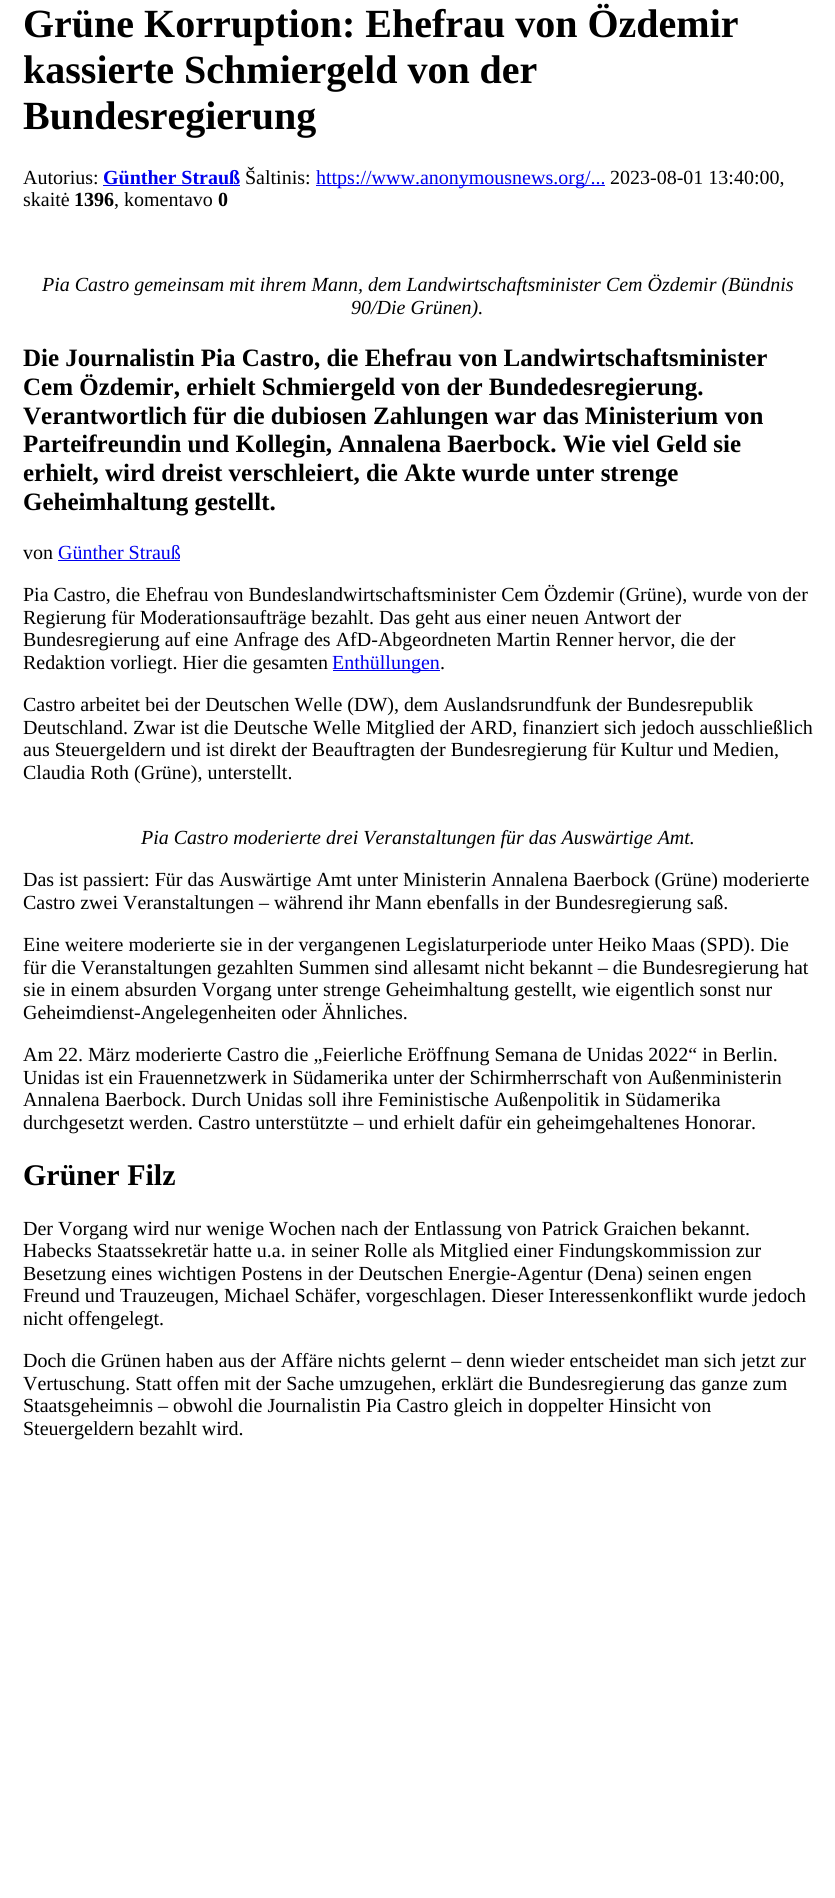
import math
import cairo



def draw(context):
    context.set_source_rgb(1, 1, 1)
    context.paint()
    context.set_source_rgb(0, 0, 238 / 255)
    context.rectangle(103, 185, 137, 1)
    context.fill()
    context.rectangle(316, 185, 289, 1)
    context.fill()
    context.rectangle(58, 560, 122, 1)
    context.fill()
    context.rectangle(333, 670, 107, 1)
    context.fill()
    context.select_font_face("Liberation Serif", cairo.FontSlant.NORMAL, cairo.FontWeight.BOLD)
    context.set_font_size(40)
    context.set_source_rgb(0, 0, 0)
    context.move_to(23, 37)
    context.show_text("Grüne Korruption: Ehefrau von Özdemir")
    context.move_to(23, 83)
    context.show_text("kassierte Schmiergeld von der")
    context.move_to(23, 129)
    context.show_text("Bundesregierung")
    context.select_font_face("Liberation Serif")
    context.set_font_size(20)
    context.move_to(23, 184)
    context.show_text("Autorius:")
    context.select_font_face("Liberation Serif", cairo.FontSlant.NORMAL, cairo.FontWeight.BOLD)
    context.set_source_rgb(0, 0, 238 / 255)
    context.move_to(103, 184)
    context.show_text("Günther Strauß")
    context.select_font_face("Liberation Serif")
    context.set_source_rgb(0, 0, 0)
    context.move_to(245, 184)
    context.show_text("Šaltinis:")
    context.set_source_rgb(0, 0, 238 / 255)
    context.move_to(316, 184)
    context.show_text("https://www.anonymousnews.org/...")
    context.set_source_rgb(0, 0, 0)
    context.move_to(610, 184)
    context.show_text("2023-08-01 13:40:00,")
    context.move_to(23, 206)
    context.show_text("skaitė")
    context.select_font_face("Liberation Serif", cairo.FontSlant.NORMAL, cairo.FontWeight.BOLD)
    context.move_to(74, 206)
    context.show_text("1396")
    context.select_font_face("Liberation Serif")
    context.move_to(114, 206)
    context.show_text(", komentavo")
    context.select_font_face("Liberation Serif", cairo.FontSlant.NORMAL, cairo.FontWeight.BOLD)
    context.move_to(218, 206)
    context.show_text("0")
    context.select_font_face("Liberation Serif", cairo.FontSlant.ITALIC)
    context.move_to(42, 291)
    context.show_text("Pia Castro gemeinsam mit ihrem Mann, dem Landwirtschaftsminister Cem Özdemir (Bündnis")
    context.move_to(351, 314)
    context.show_text("90/Die Grünen).")
    context.select_font_face("Liberation Serif", cairo.FontSlant.NORMAL, cairo.FontWeight.BOLD)
    context.set_font_size(25)
    context.move_to(23, 366)
    context.show_text("Die Journalistin Pia Castro, die Ehefrau von Landwirtschaftsminister")
    context.move_to(23, 395)
    context.show_text("Cem Özdemir, erhielt Schmiergeld von der Bundedesregierung.")
    context.move_to(23, 424)
    context.show_text("Verantwortlich für die dubiosen Zahlungen war das Ministerium von")
    context.move_to(23, 452)
    context.show_text("Parteifreundin und Kollegin, Annalena Baerbock. Wie viel Geld sie")
    context.move_to(23, 481)
    context.show_text("erhielt, wird dreist verschleiert, die Akte wurde unter strenge")
    context.move_to(23, 510)
    context.show_text("Geheimhaltung gestellt.")
    context.select_font_face("Liberation Serif")
    context.set_font_size(20)
    context.move_to(23, 559)
    context.show_text("von")
    context.set_source_rgb(0, 0, 238 / 255)
    context.move_to(58, 559)
    context.show_text("Günther Strauß")
    context.set_source_rgb(0, 0, 0)
    context.move_to(23, 601)
    context.show_text("Pia Castro, die Ehefrau von Bundeslandwirtschaftsminister Cem Özdemir (Grüne), wurde von der")
    context.move_to(23, 624)
    context.show_text("Regierung für Moderationsaufträge bezahlt. Das geht aus einer neuen Antwort der")
    context.move_to(23, 646)
    context.show_text("Bundesregierung auf eine Anfrage des AfD-Abgeordneten Martin Renner hervor, die der")
    context.move_to(23, 669)
    context.show_text("Redaktion vorliegt. Hier die gesamten")
    context.set_source_rgb(0, 0, 238 / 255)
    context.move_to(332, 669)
    context.show_text("Enthüllungen")
    context.set_source_rgb(0, 0, 0)
    context.move_to(440, 669)
    context.show_text(".")
    context.move_to(23, 711)
    context.show_text("Castro arbeitet bei der Deutschen Welle (DW), dem Auslandsrundfunk der Bundesrepublik")
    context.move_to(23, 734)
    context.show_text("Deutschland. Zwar ist die Deutsche Welle Mitglied der ARD, finanziert sich jedoch ausschließlich")
    context.move_to(23, 756)
    context.show_text("aus Steuergeldern und ist direkt der Beauftragten der Bundesregierung für Kultur und Medien,")
    context.move_to(23, 779)
    context.show_text("Claudia Roth (Grüne), unterstellt.")
    context.select_font_face("Liberation Serif", cairo.FontSlant.ITALIC)
    context.move_to(141, 844)
    context.show_text("Pia Castro moderierte drei Veranstaltungen für das Auswärtige Amt.")
    context.select_font_face("Liberation Serif")
    context.move_to(23, 886)
    context.show_text("Das ist passiert: Für das Auswärtige Amt unter Ministerin Annalena Baerbock (Grüne) moderierte")
    context.move_to(23, 909)
    context.show_text("Castro zwei Veranstaltungen – während ihr Mann ebenfalls in der Bundesregierung saß.")
    context.move_to(23, 951)
    context.show_text("Eine weitere moderierte sie in der vergangenen Legislaturperiode unter Heiko Maas (SPD). Die")
    context.move_to(23, 974)
    context.show_text("für die Veranstaltungen gezahlten Summen sind allesamt nicht bekannt – die Bundesregierung hat")
    context.move_to(23, 996)
    context.show_text("sie in einem absurden Vorgang unter strenge Geheimhaltung gestellt, wie eigentlich sonst nur")
    context.move_to(23, 1019)
    context.show_text("Geheimdienst-Angelegenheiten oder Ähnliches.")
    context.move_to(23, 1061)
    context.show_text("Am 22. März moderierte Castro die „Feierliche Eröffnung Semana de Unidas 2022“ in Berlin.")
    context.move_to(23, 1084)
    context.show_text("Unidas ist ein Frauennetzwerk in Südamerika unter der Schirmherrschaft von Außenministerin")
    context.move_to(23, 1106)
    context.show_text("Annalena Baerbock. Durch Unidas soll ihre Feministische Außenpolitik in Südamerika")
    context.move_to(23, 1129)
    context.show_text("durchgesetzt werden. Castro unterstützte – und erhielt dafür ein geheimgehaltenes Honorar.")
    context.select_font_face("Liberation Serif", cairo.FontSlant.NORMAL, cairo.FontWeight.BOLD)
    context.set_font_size(30)
    context.move_to(23, 1185)
    context.show_text("Grüner Filz")
    context.select_font_face("Liberation Serif")
    context.set_font_size(20)
    context.move_to(23, 1235)
    context.show_text("Der Vorgang wird nur wenige Wochen nach der Entlassung von Patrick Graichen bekannt.")
    context.move_to(23, 1257)
    context.show_text("Habecks Staatssekretär hatte u.a. in seiner Rolle als Mitglied einer Findungskommission zur")
    context.move_to(23, 1280)
    context.show_text("Besetzung eines wichtigen Postens in der Deutschen Energie-Agentur (Dena) seinen engen")
    context.move_to(23, 1302)
    context.show_text("Freund und Trauzeugen, Michael Schäfer, vorgeschlagen. Dieser Interessenkonflikt wurde jedoch")
    context.move_to(23, 1325)
    context.show_text("nicht offengelegt.")
    context.move_to(23, 1367)
    context.show_text("Doch die Grünen haben aus der Affäre nichts gelernt – denn wieder entscheidet man sich jetzt zur")
    context.move_to(23, 1390)
    context.show_text("Vertuschung. Statt offen mit der Sache umzugehen, erklärt die Bundesregierung das ganze zum")
    context.move_to(23, 1412)
    context.show_text("Staatsgeheimnis – obwohl die Journalistin Pia Castro gleich in doppelter Hinsicht von")
    context.move_to(23, 1435)
    context.show_text("Steuergeldern bezahlt wird.")


surface = cairo.ImageSurface(cairo.Format.RGB24, 835, 1898)
context = cairo.Context(surface)
options = cairo.FontOptions()
options.set_hint_metrics(cairo.HintMetrics.OFF)
options.set_hint_style(cairo.HintStyle.NONE)
context.set_font_options(options)
context.set_miter_limit(4)
draw(context)
surface.write_to_png("out.png")
